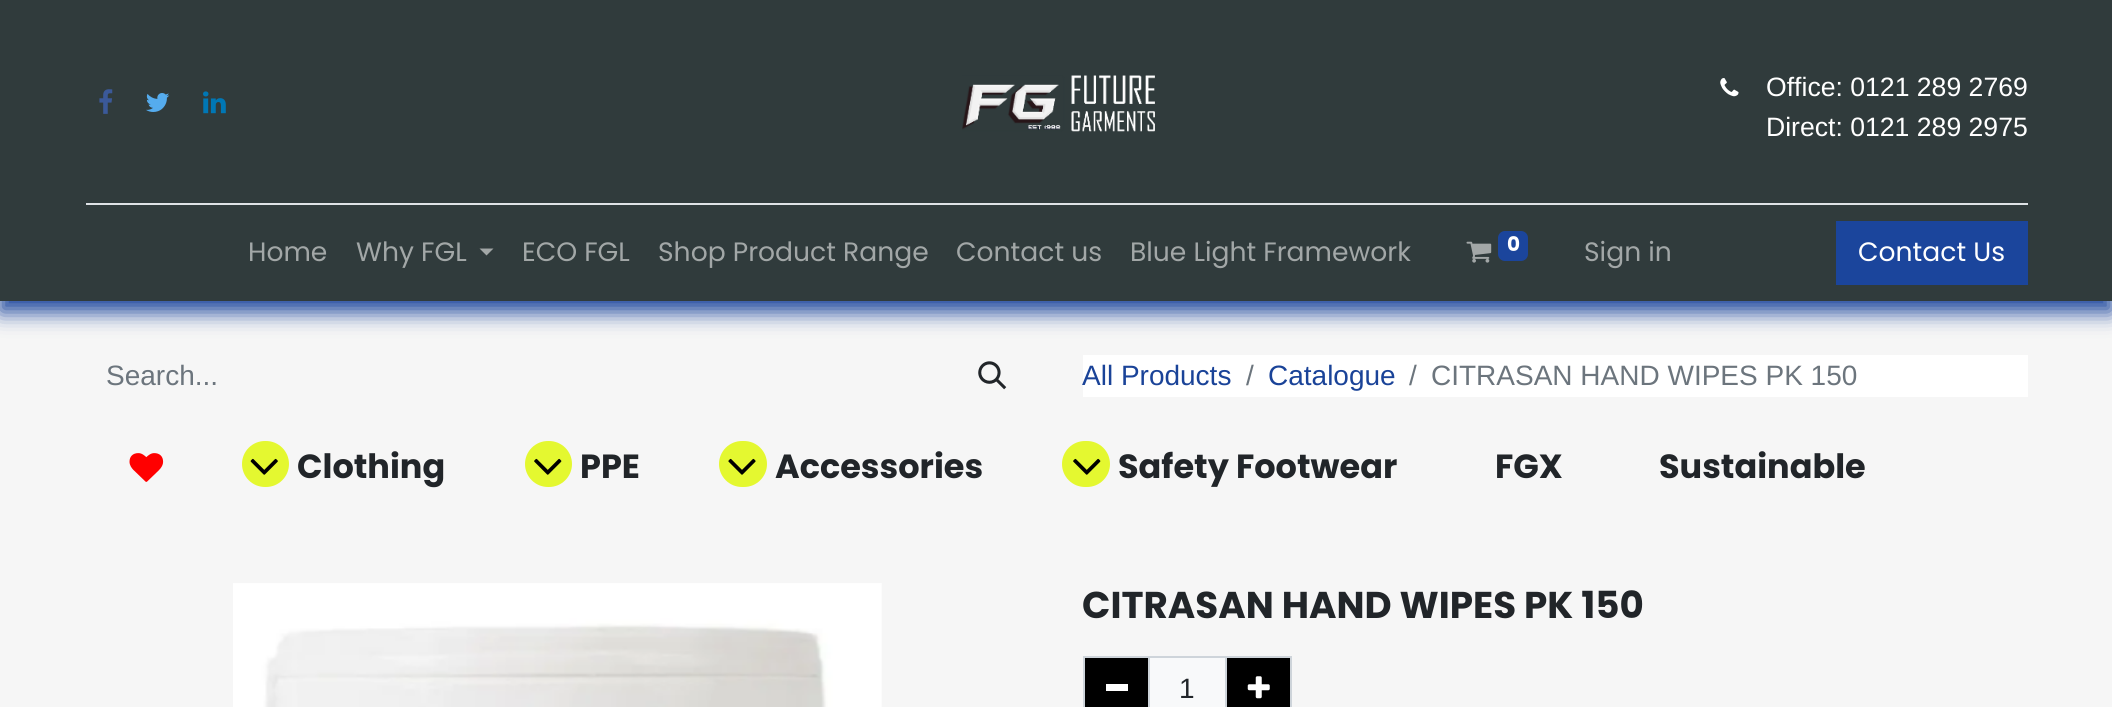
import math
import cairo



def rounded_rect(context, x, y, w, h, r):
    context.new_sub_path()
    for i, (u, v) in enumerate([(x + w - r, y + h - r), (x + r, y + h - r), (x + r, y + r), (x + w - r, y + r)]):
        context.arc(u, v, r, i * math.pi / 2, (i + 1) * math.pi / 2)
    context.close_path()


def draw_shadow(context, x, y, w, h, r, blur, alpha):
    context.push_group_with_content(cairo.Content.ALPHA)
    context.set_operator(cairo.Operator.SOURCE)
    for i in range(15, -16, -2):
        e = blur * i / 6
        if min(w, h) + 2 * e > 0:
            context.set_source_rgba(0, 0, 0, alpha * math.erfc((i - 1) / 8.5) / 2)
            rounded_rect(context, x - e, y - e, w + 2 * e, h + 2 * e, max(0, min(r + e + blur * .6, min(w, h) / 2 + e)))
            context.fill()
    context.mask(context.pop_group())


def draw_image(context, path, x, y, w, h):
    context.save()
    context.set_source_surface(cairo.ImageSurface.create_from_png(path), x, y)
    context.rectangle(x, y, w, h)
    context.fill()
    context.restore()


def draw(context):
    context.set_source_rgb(246 / 255, 246 / 255, 246 / 255)
    context.paint()
    context.set_source_rgb(27 / 255, 69 / 255, 156 / 255)
    draw_shadow(context, 0, 11, 2112, 301, 0, 10.5, 1)
    context.set_source_rgb(48 / 255, 59 / 255, 60 / 255)
    context.rectangle(0, 0, 2112, 301)
    context.fill()
    draw_image(context, "images/1.png", 99, 89, 14, 25)
    draw_image(context, "images/2.png", 146, 93, 24, 19)
    draw_image(context, "images/3.png", 203, 91, 23, 23)
    draw_image(context, "images/4.png", 962, 75, 193, 57)
    draw_image(context, "images/5.png", 1720, 78, 19, 19)
    context.set_source_rgb(222 / 255, 226 / 255, 230 / 255)
    context.rectangle(86, 203, 1942, 2)
    context.fill()
    context.set_source_rgb(162 / 255, 167 / 255, 167 / 255)
    context.new_path()
    context.move_to(479.5, 248.5)
    context.line_to(493.5, 248.5)
    context.line_to(486.5, 255.5)
    context.close_path()
    context.fill()
    draw_image(context, "images/6.png", 1466, 241, 26, 22)
    context.set_source_rgb(27 / 255, 69 / 255, 156 / 255)
    rounded_rect(context, 1498, 231, 30, 30, 7)
    context.fill()
    context.rectangle(1836, 221, 192, 64)
    context.fill()
    draw_image(context, "images/7.png", 978, 361, 29, 29)
    context.set_source_rgb(1, 1, 1)
    context.rectangle(1083, 355, 945, 42)
    context.fill()
    draw_image(context, "images/8.png", 129, 453, 35, 29)
    context.set_source_rgb(228 / 255, 248 / 255, 48 / 255)
    rounded_rect(context, 242, 441, 47, 46, 23)
    context.fill()
    draw_image(context, "images/9.png", 250, 458, 28, 17)
    rounded_rect(context, 525, 441, 47, 46, 23)
    context.fill()
    draw_image(context, "images/10.png", 534, 458, 28, 17)
    rounded_rect(context, 719, 441, 48, 46, 23)
    context.fill()
    draw_image(context, "images/11.png", 728, 458, 28, 17)
    rounded_rect(context, 1062, 441, 48, 46, 23)
    context.fill()
    draw_image(context, "images/10.png", 1073, 458, 28, 17)
    draw_image(context, "images/12.png", 233, 583, 649, 124)
    context.set_source_rgb(248 / 255, 249 / 255, 250 / 255)
    context.rectangle(1149, 657, 77, 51)
    context.fill_preserve()
    context.set_source_rgb(206 / 255, 212 / 255, 218 / 255)
    context.stroke()
    context.set_source_rgb(0, 0, 0)
    context.rectangle(1084, 657, 65, 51)
    context.fill_preserve()
    context.set_source_rgb(206 / 255, 212 / 255, 218 / 255)
    context.stroke()
    context.set_source_rgb(1, 1, 1)
    context.rectangle(1106, 684, 22, 7)
    context.fill()
    context.set_source_rgb(0, 0, 0)
    context.rectangle(1226, 657, 65, 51)
    context.fill_preserve()
    context.set_source_rgb(206 / 255, 212 / 255, 218 / 255)
    context.stroke()
    draw_image(context, "images/13.png", 1247, 676, 23, 23)
    context.select_font_face("Liberation Sans")
    context.set_font_size(26.6)
    context.set_source_rgb(1, 1, 1)
    context.move_to(1766, 96)
    context.show_text("Office: 0121 289 2769")
    context.move_to(1766, 136)
    context.show_text("Direct: 0121 289 2975")
    context.select_font_face("Poppins")
    context.set_source_rgb(162 / 255, 167 / 255, 167 / 255)
    context.move_to(248, 261)
    context.show_text("Home")
    context.move_to(356, 261)
    context.show_text("Why FGL")
    context.move_to(522, 261)
    context.show_text("ECO FGL")
    context.move_to(658, 261)
    context.show_text("Shop Product Range")
    context.move_to(956, 261)
    context.show_text("Contact us")
    context.move_to(1130, 261)
    context.show_text("Blue Light Framework")
    context.select_font_face("Poppins", cairo.FontSlant.NORMAL, cairo.FontWeight.BOLD)
    context.set_font_size(20)
    context.set_source_rgb(1, 1, 1)
    context.move_to(1507, 251)
    context.show_text("0")
    context.select_font_face("Poppins")
    context.set_font_size(26.6)
    context.set_source_rgb(162 / 255, 167 / 255, 167 / 255)
    context.move_to(1584, 261)
    context.show_text("Sign in")
    context.set_source_rgb(1, 1, 1)
    context.move_to(1858, 261)
    context.show_text("Contact Us")
    context.select_font_face("Liberation Sans")
    context.set_font_size(28)
    context.set_source_rgb(108 / 255, 117 / 255, 125 / 255)
    context.move_to(106, 385)
    context.show_text("Search...")
    context.set_source_rgb(26 / 255, 67 / 255, 152 / 255)
    context.move_to(1082, 385)
    context.show_text("All Products")
    context.set_source_rgb(108 / 255, 117 / 255, 125 / 255)
    context.move_to(1246, 385)
    context.show_text("/")
    context.set_source_rgb(26 / 255, 67 / 255, 152 / 255)
    context.move_to(1268, 385)
    context.show_text("Catalogue")
    context.set_source_rgb(108 / 255, 117 / 255, 125 / 255)
    context.move_to(1409, 385)
    context.show_text("/")
    context.move_to(1431, 385)
    context.show_text("CITRASAN HAND WIPES PK 150")
    context.select_font_face("Poppins", cairo.FontSlant.NORMAL, cairo.FontWeight.BOLD)
    context.set_font_size(33.5)
    context.set_source_rgb(33 / 255, 37 / 255, 41 / 255)
    context.move_to(297, 478)
    context.show_text("Clothing")
    context.move_to(580, 478)
    context.show_text("PPE")
    context.move_to(775, 478)
    context.show_text("Accessories")
    context.move_to(1118, 478)
    context.show_text("Safety Footwear")
    context.move_to(1495, 478)
    context.show_text("FGX")
    context.move_to(1659, 478)
    context.show_text("Sustainable")
    context.set_font_size(37.3)
    context.move_to(1082, 618)
    context.show_text("CITRASAN HAND WIPES PK 150")
    context.select_font_face("Liberation Sans")
    context.set_font_size(28)
    context.move_to(1179, 698)
    context.show_text("1")


surface = cairo.ImageSurface(cairo.Format.RGB24, 2112, 707)
context = cairo.Context(surface)
options = cairo.FontOptions()
options.set_hint_metrics(cairo.HintMetrics.OFF)
options.set_hint_style(cairo.HintStyle.NONE)
context.set_font_options(options)
context.set_miter_limit(4)
draw(context)
surface.write_to_png("out.png")
